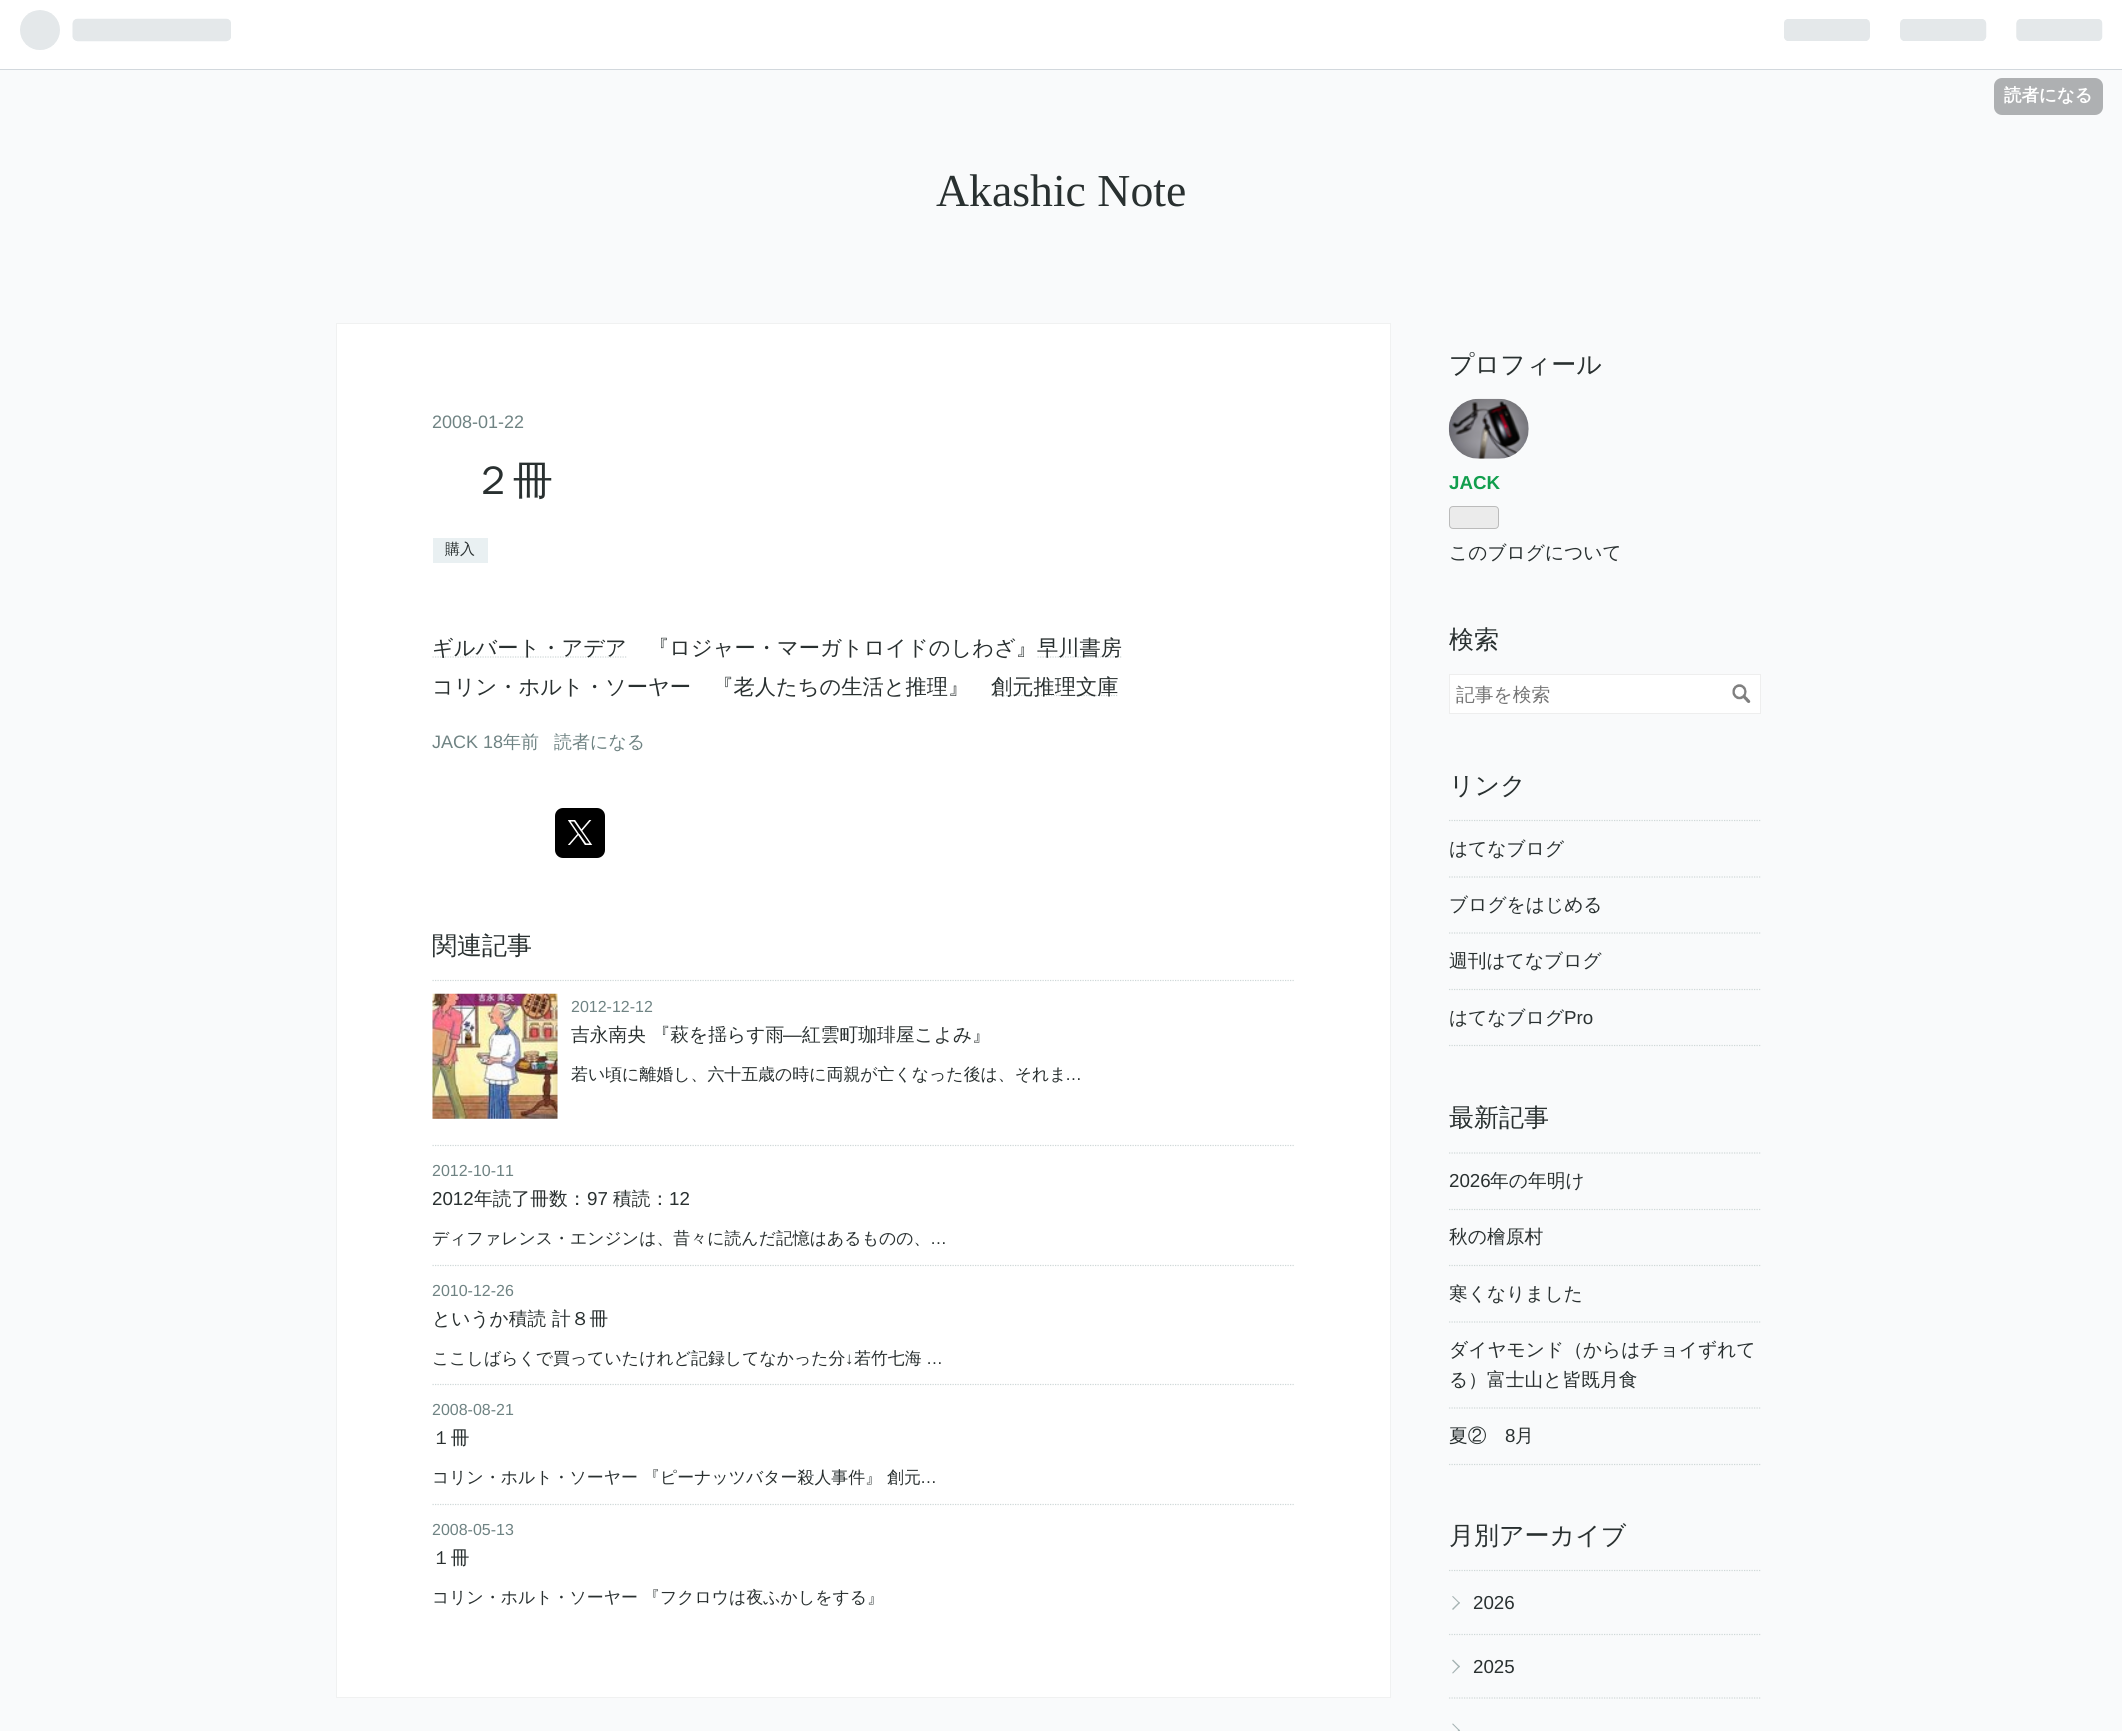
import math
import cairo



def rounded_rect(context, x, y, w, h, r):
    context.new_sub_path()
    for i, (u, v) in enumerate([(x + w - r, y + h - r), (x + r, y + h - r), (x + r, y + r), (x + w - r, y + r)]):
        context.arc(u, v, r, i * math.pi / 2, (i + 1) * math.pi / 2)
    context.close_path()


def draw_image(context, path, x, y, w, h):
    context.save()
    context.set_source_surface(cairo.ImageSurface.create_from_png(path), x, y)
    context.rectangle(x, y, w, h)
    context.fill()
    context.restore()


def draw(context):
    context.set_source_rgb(249 / 255, 250 / 255, 251 / 255)
    context.paint()
    context.set_source_rgb(1, 1, 1)
    context.rectangle(0, 0, 2122, 69)
    context.fill()
    context.set_source_rgb(210 / 255, 216 / 255, 221 / 255)
    context.rectangle(0, 69, 2122, 1)
    context.fill()
    draw_image(context, "images/1.png", 20, 10, 211, 40)
    draw_image(context, "images/2.png", 1784, 19, 319, 22)
    context.set_source_rgb(174 / 255, 176 / 255, 178 / 255)
    rounded_rect(context, 1994, 78, 109, 37, 8)
    context.fill()
    context.set_source_rgb(1, 1, 1)
    context.rectangle(336.5, 323.5, 1054, 1374)
    context.fill_preserve()
    context.set_source_rgb(240 / 255, 241 / 255, 241 / 255)
    context.set_line_width(1)
    context.stroke()
    context.set_source_rgb(233 / 255, 240 / 255, 242 / 255)
    context.rectangle(433, 538, 55, 25)
    context.fill()
    context.new_path()
    context.move_to(432.5, 657)
    context.line_to(627, 657)
    context.set_source_rgb(207 / 255, 216 / 255, 216 / 255)
    context.set_line_width(1.2)
    context.set_dash([1.25, 1.25])
    context.stroke()
    context.new_path()
    context.move_to(1037.5, 657)
    context.line_to(1122.5, 657)
    context.stroke()
    context.new_path()
    context.move_to(991, 695.5)
    context.line_to(1118.5, 695.5)
    context.stroke()
    context.set_source_rgb(0, 0, 0)
    rounded_rect(context, 555, 808, 50, 50, 8)
    context.fill()
    draw_image(context, "images/3.png", 568, 820, 25, 25)
    context.new_path()
    context.move_to(432.5, 980.5)
    context.line_to(1295, 980.5)
    context.set_source_rgb(207 / 255, 216 / 255, 216 / 255)
    context.stroke()
    draw_image(context, "images/4.png", 432, 993, 126, 126)
    context.new_path()
    context.move_to(432.5, 1145.5)
    context.line_to(1295, 1145.5)
    context.stroke()
    context.new_path()
    context.move_to(432.5, 1265.5)
    context.line_to(1295, 1265.5)
    context.stroke()
    context.new_path()
    context.move_to(432.5, 1384.5)
    context.line_to(1295, 1384.5)
    context.stroke()
    context.new_path()
    context.move_to(432.5, 1504.5)
    context.line_to(1295, 1504.5)
    context.stroke()
    draw_image(context, "images/5.png", 1448, 398, 81, 61)
    context.set_source_rgb(235 / 255, 235 / 255, 235 / 255)
    rounded_rect(context, 1449.5, 506.5, 49, 22, 3.5)
    context.fill_preserve()
    context.set_source_rgb(187 / 255, 187 / 255, 187 / 255)
    context.set_line_width(1)
    context.set_dash([])
    context.stroke()
    context.set_source_rgb(1, 1, 1)
    context.rectangle(1449.5, 674.5, 311, 39)
    context.fill_preserve()
    context.set_source_rgb(238 / 255, 238 / 255, 238 / 255)
    context.stroke()
    draw_image(context, "images/6.png", 1732, 684, 19, 19)
    context.new_path()
    context.move_to(1449, 820.5)
    context.line_to(1761, 820.5)
    context.set_source_rgb(207 / 255, 216 / 255, 216 / 255)
    context.set_line_width(1.2)
    context.set_dash([1.25, 1.25])
    context.stroke()
    context.new_path()
    context.move_to(1449, 877)
    context.line_to(1761, 877)
    context.stroke()
    context.new_path()
    context.move_to(1449, 933)
    context.line_to(1761, 933)
    context.stroke()
    context.new_path()
    context.move_to(1449, 989.5)
    context.line_to(1761, 989.5)
    context.stroke()
    context.new_path()
    context.move_to(1449, 1045.5)
    context.line_to(1761, 1045.5)
    context.stroke()
    context.new_path()
    context.move_to(1449, 1153)
    context.line_to(1761, 1153)
    context.stroke()
    context.new_path()
    context.move_to(1449, 1209.5)
    context.line_to(1761, 1209.5)
    context.stroke()
    context.new_path()
    context.move_to(1449, 1265.5)
    context.line_to(1761, 1265.5)
    context.stroke()
    context.new_path()
    context.move_to(1449, 1322)
    context.line_to(1761, 1322)
    context.stroke()
    context.new_path()
    context.move_to(1449, 1408)
    context.line_to(1761, 1408)
    context.stroke()
    context.new_path()
    context.move_to(1449, 1464.5)
    context.line_to(1761, 1464.5)
    context.stroke()
    context.new_path()
    context.move_to(1449, 1570.5)
    context.line_to(1761, 1570.5)
    context.stroke()
    context.set_source_rgb(166 / 255, 179 / 255, 179 / 255)
    context.new_path()
    context.move_to(1453, 1596)
    context.line_to(1460, 1603)
    context.line_to(1459, 1603.5)
    context.line_to(1452, 1596.5)
    context.close_path()
    context.fill()
    context.new_path()
    context.move_to(1459, 1602)
    context.line_to(1460, 1603)
    context.line_to(1453, 1610)
    context.line_to(1452, 1609)
    context.close_path()
    context.fill()
    context.new_path()
    context.move_to(1449, 1634.5)
    context.line_to(1761, 1634.5)
    context.set_source_rgb(207 / 255, 216 / 255, 216 / 255)
    context.stroke()
    context.set_source_rgb(166 / 255, 179 / 255, 179 / 255)
    context.new_path()
    context.move_to(1453, 1659.5)
    context.line_to(1460, 1666.5)
    context.line_to(1459, 1667.5)
    context.line_to(1452, 1660.5)
    context.close_path()
    context.fill()
    context.new_path()
    context.move_to(1459, 1665.5)
    context.line_to(1460, 1666.5)
    context.line_to(1453, 1673.5)
    context.line_to(1452, 1673)
    context.close_path()
    context.fill()
    context.new_path()
    context.move_to(1449, 1698)
    context.line_to(1761, 1698)
    context.set_source_rgb(207 / 255, 216 / 255, 216 / 255)
    context.stroke()
    context.set_source_rgb(166 / 255, 179 / 255, 179 / 255)
    context.new_path()
    context.move_to(1453, 1723.5)
    context.line_to(1460, 1730.5)
    context.line_to(1459, 1731)
    context.line_to(1452, 1724)
    context.close_path()
    context.fill()
    context.new_path()
    context.move_to(1459, 1729.5)
    context.line_to(1460, 1730.5)
    context.line_to(1453, 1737.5)
    context.line_to(1452, 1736.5)
    context.close_path()
    context.fill()
    context.select_font_face("WenQuanYi Zen Hei", cairo.FontSlant.NORMAL, cairo.FontWeight.BOLD)
    context.set_font_size(17.5)
    context.set_source_rgb(1, 1, 1)
    context.move_to(2004, 101)
    context.show_text("読者になる")
    context.select_font_face("Liberation Serif")
    context.set_font_size(45.75)
    context.set_source_rgb(41 / 255, 48 / 255, 48 / 255)
    context.move_to(936, 206)
    context.show_text("Akashic Note")
    context.select_font_face("Liberation Sans")
    context.set_font_size(18)
    context.set_source_rgb(111 / 255, 131 / 255, 131 / 255)
    context.move_to(432, 428)
    context.show_text("2008-01-22")
    context.select_font_face("WenQuanYi Zen Hei Medium")
    context.set_font_size(40)
    context.set_source_rgb(41 / 255, 48 / 255, 48 / 255)
    context.move_to(473, 494)
    context.show_text("２冊")
    context.set_font_size(15)
    context.move_to(445, 554)
    context.show_text("購入")
    context.set_font_size(21.25)
    context.move_to(432, 655)
    context.show_text("ギルバート・アデア")
    context.move_to(648, 655)
    context.show_text("『ロジャー・マーガトロイドのしわざ』")
    context.move_to(1037, 655)
    context.show_text("早川書房")
    context.move_to(432, 694)
    context.show_text("コリン・ホルト・ソーヤー　『老人たちの生活と推理』")
    context.move_to(991, 694)
    context.show_text("創元推理文庫")
    context.select_font_face("Liberation Sans")
    context.set_font_size(18)
    context.set_source_rgb(111 / 255, 131 / 255, 131 / 255)
    context.move_to(432, 748)
    context.show_text("JACK 18")
    context.select_font_face("WenQuanYi Zen Hei Medium")
    context.move_to(503, 748)
    context.show_text("年前")
    context.move_to(554, 748)
    context.show_text("読者になる")
    context.set_font_size(25)
    context.set_source_rgb(41 / 255, 48 / 255, 48 / 255)
    context.move_to(432, 954)
    context.show_text("関連記事")
    context.select_font_face("Liberation Sans")
    context.set_font_size(16)
    context.set_source_rgb(111 / 255, 131 / 255, 131 / 255)
    context.move_to(571, 1012)
    context.show_text("2012-12-12")
    context.select_font_face("WenQuanYi Zen Hei Medium")
    context.set_font_size(18.75)
    context.set_source_rgb(41 / 255, 48 / 255, 48 / 255)
    context.move_to(571, 1041)
    context.show_text("吉永南央 『萩を揺らす雨")
    context.select_font_face("Liberation Sans")
    context.move_to(783, 1041)
    context.show_text("―")
    context.select_font_face("WenQuanYi Zen Hei Medium")
    context.move_to(802, 1041)
    context.show_text("紅雲町珈琲屋こよみ』")
    context.set_font_size(16.9)
    context.move_to(571, 1080)
    context.show_text("若い頃に離婚し、六十五歳の時に両親が亡くなった後は、それま")
    context.select_font_face("Liberation Sans")
    context.move_to(1065, 1080)
    context.show_text("…")
    context.set_font_size(16)
    context.set_source_rgb(111 / 255, 131 / 255, 131 / 255)
    context.move_to(432, 1176)
    context.show_text("2012-10-11")
    context.set_font_size(18.75)
    context.set_source_rgb(41 / 255, 48 / 255, 48 / 255)
    context.move_to(432, 1205)
    context.show_text("2012")
    context.select_font_face("WenQuanYi Zen Hei Medium")
    context.move_to(474, 1205)
    context.show_text("年読了冊数：")
    context.select_font_face("Liberation Sans")
    context.move_to(587, 1205)
    context.show_text("97")
    context.select_font_face("WenQuanYi Zen Hei Medium")
    context.move_to(613, 1205)
    context.show_text("積読：")
    context.select_font_face("Liberation Sans")
    context.move_to(669, 1205)
    context.show_text("12")
    context.select_font_face("WenQuanYi Zen Hei Medium")
    context.set_font_size(16.9)
    context.move_to(432, 1244)
    context.show_text("ディファレンス・エンジンは、昔々に読んだ記憶はあるものの、")
    context.select_font_face("Liberation Sans")
    context.move_to(930, 1244)
    context.show_text("…")
    context.set_font_size(16)
    context.set_source_rgb(111 / 255, 131 / 255, 131 / 255)
    context.move_to(432, 1296)
    context.show_text("2010-12-26")
    context.select_font_face("WenQuanYi Zen Hei Medium")
    context.set_font_size(18.75)
    context.set_source_rgb(41 / 255, 48 / 255, 48 / 255)
    context.move_to(432, 1325)
    context.show_text("というか積読 計８冊")
    context.set_font_size(16.9)
    context.move_to(432, 1364)
    context.show_text("ここしばらくで買っていたけれど記録してなかった分")
    context.select_font_face("Liberation Sans")
    context.move_to(845, 1364)
    context.show_text("↓")
    context.select_font_face("WenQuanYi Zen Hei Medium")
    context.move_to(854, 1364)
    context.show_text("若竹七海")
    context.select_font_face("Liberation Sans")
    context.move_to(926, 1364)
    context.show_text("…")
    context.set_font_size(16)
    context.set_source_rgb(111 / 255, 131 / 255, 131 / 255)
    context.move_to(432, 1415)
    context.show_text("2008-08-21")
    context.select_font_face("WenQuanYi Zen Hei Medium")
    context.set_font_size(18.75)
    context.set_source_rgb(41 / 255, 48 / 255, 48 / 255)
    context.move_to(432, 1444)
    context.show_text("１冊")
    context.set_font_size(16.9)
    context.move_to(432, 1483)
    context.show_text("コリン・ホルト・ソーヤー 『ピーナッツバター殺人事件』 創元")
    context.select_font_face("Liberation Sans")
    context.move_to(920, 1483)
    context.show_text("…")
    context.set_font_size(16)
    context.set_source_rgb(111 / 255, 131 / 255, 131 / 255)
    context.move_to(432, 1535)
    context.show_text("2008-05-13")
    context.select_font_face("WenQuanYi Zen Hei Medium")
    context.set_font_size(18.75)
    context.set_source_rgb(41 / 255, 48 / 255, 48 / 255)
    context.move_to(432, 1564)
    context.show_text("１冊")
    context.set_font_size(16.9)
    context.move_to(432, 1603)
    context.show_text("コリン・ホルト・ソーヤー 『フクロウは夜ふかしをする』")
    context.set_font_size(25)
    context.move_to(1449, 373)
    context.show_text("プロフィール")
    context.select_font_face("Liberation Sans", cairo.FontSlant.NORMAL, cairo.FontWeight.BOLD)
    context.set_font_size(18.75)
    context.set_source_rgb(17 / 255, 158 / 255, 77 / 255)
    context.move_to(1449, 489)
    context.show_text("JACK")
    context.select_font_face("WenQuanYi Zen Hei Medium")
    context.set_source_rgb(41 / 255, 48 / 255, 48 / 255)
    context.move_to(1449, 559)
    context.show_text("このブログについて")
    context.set_font_size(25)
    context.move_to(1449, 648)
    context.show_text("検索")
    context.set_font_size(18.75)
    context.set_source_rgb(117 / 255, 117 / 255, 117 / 255)
    context.move_to(1456, 701)
    context.show_text("記事を検索")
    context.set_font_size(25)
    context.set_source_rgb(41 / 255, 48 / 255, 48 / 255)
    context.move_to(1449, 794)
    context.show_text("リンク")
    context.set_font_size(18.75)
    context.move_to(1449, 855)
    context.show_text("はてなブログ")
    context.move_to(1449, 911)
    context.show_text("ブログをはじめる")
    context.move_to(1449, 967)
    context.show_text("週刊はてなブログ")
    context.move_to(1449, 1024)
    context.show_text("はてなブログ")
    context.select_font_face("Liberation Sans")
    context.move_to(1564, 1024)
    context.show_text("Pro")
    context.select_font_face("WenQuanYi Zen Hei Medium")
    context.set_font_size(25)
    context.move_to(1449, 1126)
    context.show_text("最新記事")
    context.select_font_face("Liberation Sans")
    context.set_font_size(18.75)
    context.move_to(1449, 1187)
    context.show_text("2026")
    context.select_font_face("WenQuanYi Zen Hei Medium")
    context.move_to(1490, 1187)
    context.show_text("年の年明け")
    context.move_to(1449, 1243)
    context.show_text("秋の檜原村")
    context.move_to(1449, 1300)
    context.show_text("寒くなりました")
    context.move_to(1449, 1356)
    context.show_text("ダイヤモンド（からはチョイずれて")
    context.move_to(1449, 1386)
    context.show_text("る）富士山と皆既月食")
    context.move_to(1449, 1442)
    context.show_text("夏②")
    context.select_font_face("Liberation Sans")
    context.move_to(1505, 1442)
    context.show_text("8")
    context.select_font_face("WenQuanYi Zen Hei Medium")
    context.move_to(1515, 1442)
    context.show_text("月")
    context.set_font_size(25)
    context.move_to(1449, 1544)
    context.show_text("月別アーカイブ")
    context.select_font_face("Liberation Sans")
    context.set_font_size(18.75)
    context.move_to(1473, 1609)
    context.show_text("2026")
    context.move_to(1473, 1673)
    context.show_text("2025")


surface = cairo.ImageSurface(cairo.Format.RGB24, 2122, 1731)
context = cairo.Context(surface)
options = cairo.FontOptions()
options.set_hint_metrics(cairo.HintMetrics.OFF)
options.set_hint_style(cairo.HintStyle.NONE)
context.set_font_options(options)
context.set_miter_limit(4)
draw(context)
surface.write_to_png("out.png")
